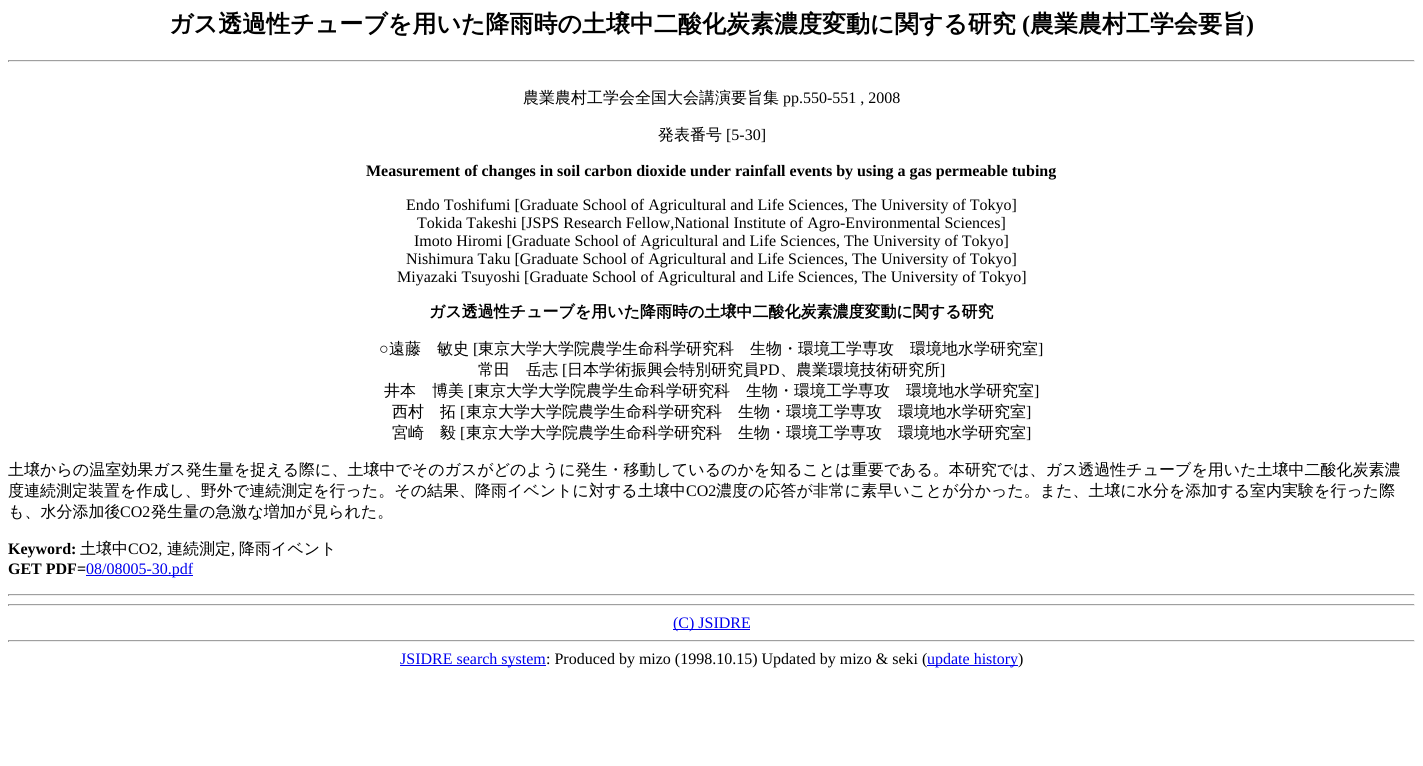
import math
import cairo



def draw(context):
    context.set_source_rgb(1, 1, 1)
    context.paint()
    context.set_source_rgb(159 / 255, 159 / 255, 159 / 255)
    context.rectangle(8, 60, 1407, 1)
    context.fill()
    context.set_source_rgb(238 / 255, 238 / 255, 238 / 255)
    context.rectangle(1414, 60, 1, 2)
    context.fill()
    context.rectangle(8, 61, 1407, 1)
    context.fill()
    context.set_source_rgb(159 / 255, 159 / 255, 159 / 255)
    context.rectangle(8, 60, 1, 2)
    context.fill()
    context.set_source_rgb(0, 0, 238 / 255)
    context.rectangle(86, 575, 107, 1)
    context.fill()
    context.set_source_rgb(159 / 255, 159 / 255, 159 / 255)
    context.rectangle(8, 594, 1407, 1)
    context.fill()
    context.set_source_rgb(238 / 255, 238 / 255, 238 / 255)
    context.rectangle(1414, 594, 1, 2)
    context.fill()
    context.rectangle(8, 595, 1407, 1)
    context.fill()
    context.set_source_rgb(159 / 255, 159 / 255, 159 / 255)
    context.rectangle(8, 594, 1, 2)
    context.fill()
    context.rectangle(8, 604, 1407, 1)
    context.fill()
    context.set_source_rgb(238 / 255, 238 / 255, 238 / 255)
    context.rectangle(1414, 604, 1, 2)
    context.fill()
    context.rectangle(8, 605, 1407, 1)
    context.fill()
    context.set_source_rgb(159 / 255, 159 / 255, 159 / 255)
    context.rectangle(8, 604, 1, 2)
    context.fill()
    context.set_source_rgb(0, 0, 238 / 255)
    context.rectangle(673, 629, 77, 1)
    context.fill()
    context.set_source_rgb(159 / 255, 159 / 255, 159 / 255)
    context.rectangle(8, 640, 1407, 1)
    context.fill()
    context.set_source_rgb(238 / 255, 238 / 255, 238 / 255)
    context.rectangle(1414, 640, 1, 2)
    context.fill()
    context.rectangle(8, 641, 1407, 1)
    context.fill()
    context.set_source_rgb(159 / 255, 159 / 255, 159 / 255)
    context.rectangle(8, 640, 1, 2)
    context.fill()
    context.set_source_rgb(0, 0, 238 / 255)
    context.rectangle(400, 665, 146, 1)
    context.fill()
    context.rectangle(927, 665, 91, 1)
    context.fill()
    context.select_font_face("WenQuanYi Zen Hei", cairo.FontSlant.NORMAL, cairo.FontWeight.BOLD)
    context.set_font_size(24)
    context.set_source_rgb(0, 0, 0)
    context.move_to(169, 32)
    context.show_text("ガス透過性チューブを用いた降雨時の土壌中二酸化炭素濃度変動に関する研究")
    context.select_font_face("Liberation Serif", cairo.FontSlant.NORMAL, cairo.FontWeight.BOLD)
    context.move_to(1022, 32)
    context.show_text("(")
    context.select_font_face("WenQuanYi Zen Hei", cairo.FontSlant.NORMAL, cairo.FontWeight.BOLD)
    context.move_to(1030, 32)
    context.show_text("農業農村工学会要旨")
    context.select_font_face("Liberation Serif", cairo.FontSlant.NORMAL, cairo.FontWeight.BOLD)
    context.move_to(1246, 32)
    context.show_text(")")
    context.select_font_face("WenQuanYi Zen Hei Medium")
    context.set_font_size(16)
    context.move_to(523, 103)
    context.show_text("農業農村工学会全国大会講演要旨集")
    context.select_font_face("Liberation Serif")
    context.move_to(783, 103)
    context.show_text("pp.550-551 , 2008")
    context.select_font_face("WenQuanYi Zen Hei Medium")
    context.move_to(658, 140)
    context.show_text("発表番号")
    context.select_font_face("Liberation Serif")
    context.move_to(726, 140)
    context.show_text("[5-30]")
    context.select_font_face("Liberation Serif", cairo.FontSlant.NORMAL, cairo.FontWeight.BOLD)
    context.move_to(366, 176)
    context.show_text("Measurement of changes in soil carbon dioxide under rainfall events by using a gas permeable tubing")
    context.select_font_face("Liberation Serif")
    context.move_to(406, 210)
    context.show_text("Endo Toshifumi [Graduate School of Agricultural and Life Sciences, The University of Tokyo]")
    context.move_to(417, 228)
    context.show_text("Tokida Takeshi [JSPS Research Fellow,National Institute of Agro-Environmental Sciences]")
    context.move_to(414, 246)
    context.show_text("Imoto Hiromi [Graduate School of Agricultural and Life Sciences, The University of Tokyo]")
    context.move_to(406, 264)
    context.show_text("Nishimura Taku [Graduate School of Agricultural and Life Sciences, The University of Tokyo]")
    context.move_to(397, 282)
    context.show_text("Miyazaki Tsuyoshi [Graduate School of Agricultural and Life Sciences, The University of Tokyo]")
    context.select_font_face("WenQuanYi Zen Hei", cairo.FontSlant.NORMAL, cairo.FontWeight.BOLD)
    context.move_to(429, 317)
    context.show_text("ガス透過性チューブを用いた降雨時の土壌中二酸化炭素濃度変動に関する研究")
    context.select_font_face("Liberation Serif")
    context.move_to(379, 354)
    context.show_text("○")
    context.select_font_face("WenQuanYi Zen Hei Medium")
    context.move_to(389, 354)
    context.show_text("遠藤　敏史")
    context.select_font_face("Liberation Serif")
    context.move_to(473, 354)
    context.show_text("[")
    context.select_font_face("WenQuanYi Zen Hei Medium")
    context.move_to(478, 354)
    context.show_text("東京大学大学院農学生命科学研究科　生物・環境工学専攻　環境地水学研究室")
    context.select_font_face("Liberation Serif")
    context.move_to(1038, 354)
    context.show_text("]")
    context.select_font_face("WenQuanYi Zen Hei Medium")
    context.move_to(478, 375)
    context.show_text("常田　岳志")
    context.select_font_face("Liberation Serif")
    context.move_to(562, 375)
    context.show_text("[")
    context.select_font_face("WenQuanYi Zen Hei Medium")
    context.move_to(567, 375)
    context.show_text("日本学術振興会特別研究員")
    context.select_font_face("Liberation Serif")
    context.move_to(759, 375)
    context.show_text("PD")
    context.select_font_face("WenQuanYi Zen Hei Medium")
    context.move_to(780, 375)
    context.show_text("、農業環境技術研究所")
    context.select_font_face("Liberation Serif")
    context.move_to(940, 375)
    context.show_text("]")
    context.select_font_face("WenQuanYi Zen Hei Medium")
    context.move_to(384, 396)
    context.show_text("井本　博美")
    context.select_font_face("Liberation Serif")
    context.move_to(468, 396)
    context.show_text("[")
    context.select_font_face("WenQuanYi Zen Hei Medium")
    context.move_to(474, 396)
    context.show_text("東京大学大学院農学生命科学研究科　生物・環境工学専攻　環境地水学研究室")
    context.select_font_face("Liberation Serif")
    context.move_to(1034, 396)
    context.show_text("]")
    context.select_font_face("WenQuanYi Zen Hei Medium")
    context.move_to(392, 417)
    context.show_text("西村　拓")
    context.select_font_face("Liberation Serif")
    context.move_to(460, 417)
    context.show_text("[")
    context.select_font_face("WenQuanYi Zen Hei Medium")
    context.move_to(466, 417)
    context.show_text("東京大学大学院農学生命科学研究科　生物・環境工学専攻　環境地水学研究室")
    context.select_font_face("Liberation Serif")
    context.move_to(1026, 417)
    context.show_text("]")
    context.select_font_face("WenQuanYi Zen Hei Medium")
    context.move_to(392, 438)
    context.show_text("宮崎　毅")
    context.select_font_face("Liberation Serif")
    context.move_to(460, 438)
    context.show_text("[")
    context.select_font_face("WenQuanYi Zen Hei Medium")
    context.move_to(466, 438)
    context.show_text("東京大学大学院農学生命科学研究科　生物・環境工学専攻　環境地水学研究室")
    context.select_font_face("Liberation Serif")
    context.move_to(1026, 438)
    context.show_text("]")
    context.select_font_face("WenQuanYi Zen Hei Medium")
    context.move_to(8, 475)
    context.show_text("土壌からの温室効果ガス発生量を捉える際に、土壌中でそのガスがどのように発生・移動しているのかを知ることは重要である。本研究では、ガス透過性チューブを用いた土壌中二酸化炭素濃")
    context.move_to(8, 496)
    context.show_text("度連続測定装置を作成し、野外で連続測定を行った。その結果、降雨イベントに対する土壌中")
    context.select_font_face("Liberation Serif")
    context.move_to(686, 496)
    context.show_text("CO2")
    context.select_font_face("WenQuanYi Zen Hei Medium")
    context.move_to(716, 496)
    context.show_text("濃度の応答が非常に素早いことが分かった。また、土壌に水分を添加する室内実験を行った際")
    context.move_to(8, 517)
    context.show_text("も、水分添加後")
    context.select_font_face("Liberation Serif")
    context.move_to(120, 517)
    context.show_text("CO2")
    context.select_font_face("WenQuanYi Zen Hei Medium")
    context.move_to(151, 517)
    context.show_text("発生量の急激な増加が見られた。")
    context.select_font_face("Liberation Serif", cairo.FontSlant.NORMAL, cairo.FontWeight.BOLD)
    context.move_to(8, 554)
    context.show_text("Keyword:")
    context.select_font_face("WenQuanYi Zen Hei Medium")
    context.move_to(80, 554)
    context.show_text("土壌中")
    context.select_font_face("Liberation Serif")
    context.move_to(128, 554)
    context.show_text("CO2,")
    context.select_font_face("WenQuanYi Zen Hei Medium")
    context.move_to(167, 554)
    context.show_text("連続測定")
    context.select_font_face("Liberation Serif")
    context.move_to(231, 554)
    context.show_text(",")
    context.select_font_face("WenQuanYi Zen Hei Medium")
    context.move_to(239, 554)
    context.show_text("降雨イベント")
    context.select_font_face("Liberation Serif", cairo.FontSlant.NORMAL, cairo.FontWeight.BOLD)
    context.move_to(8, 574)
    context.show_text("GET PDF=")
    context.select_font_face("Liberation Serif")
    context.set_source_rgb(0, 0, 238 / 255)
    context.move_to(86, 574)
    context.show_text("08/08005-30.pdf")
    context.move_to(673, 628)
    context.show_text("(C) JSIDRE")
    context.move_to(400, 664)
    context.show_text("JSIDRE search system")
    context.set_source_rgb(0, 0, 0)
    context.move_to(546, 664)
    context.show_text(": Produced by mizo (1998.10.15) Updated by mizo & seki (")
    context.set_source_rgb(0, 0, 238 / 255)
    context.move_to(927, 664)
    context.show_text("update history")
    context.set_source_rgb(0, 0, 0)
    context.move_to(1018, 664)
    context.show_text(")")


surface = cairo.ImageSurface(cairo.Format.RGB24, 1423, 766)
context = cairo.Context(surface)
options = cairo.FontOptions()
options.set_hint_metrics(cairo.HintMetrics.OFF)
options.set_hint_style(cairo.HintStyle.NONE)
context.set_font_options(options)
context.set_miter_limit(4)
draw(context)
surface.write_to_png("out.png")
